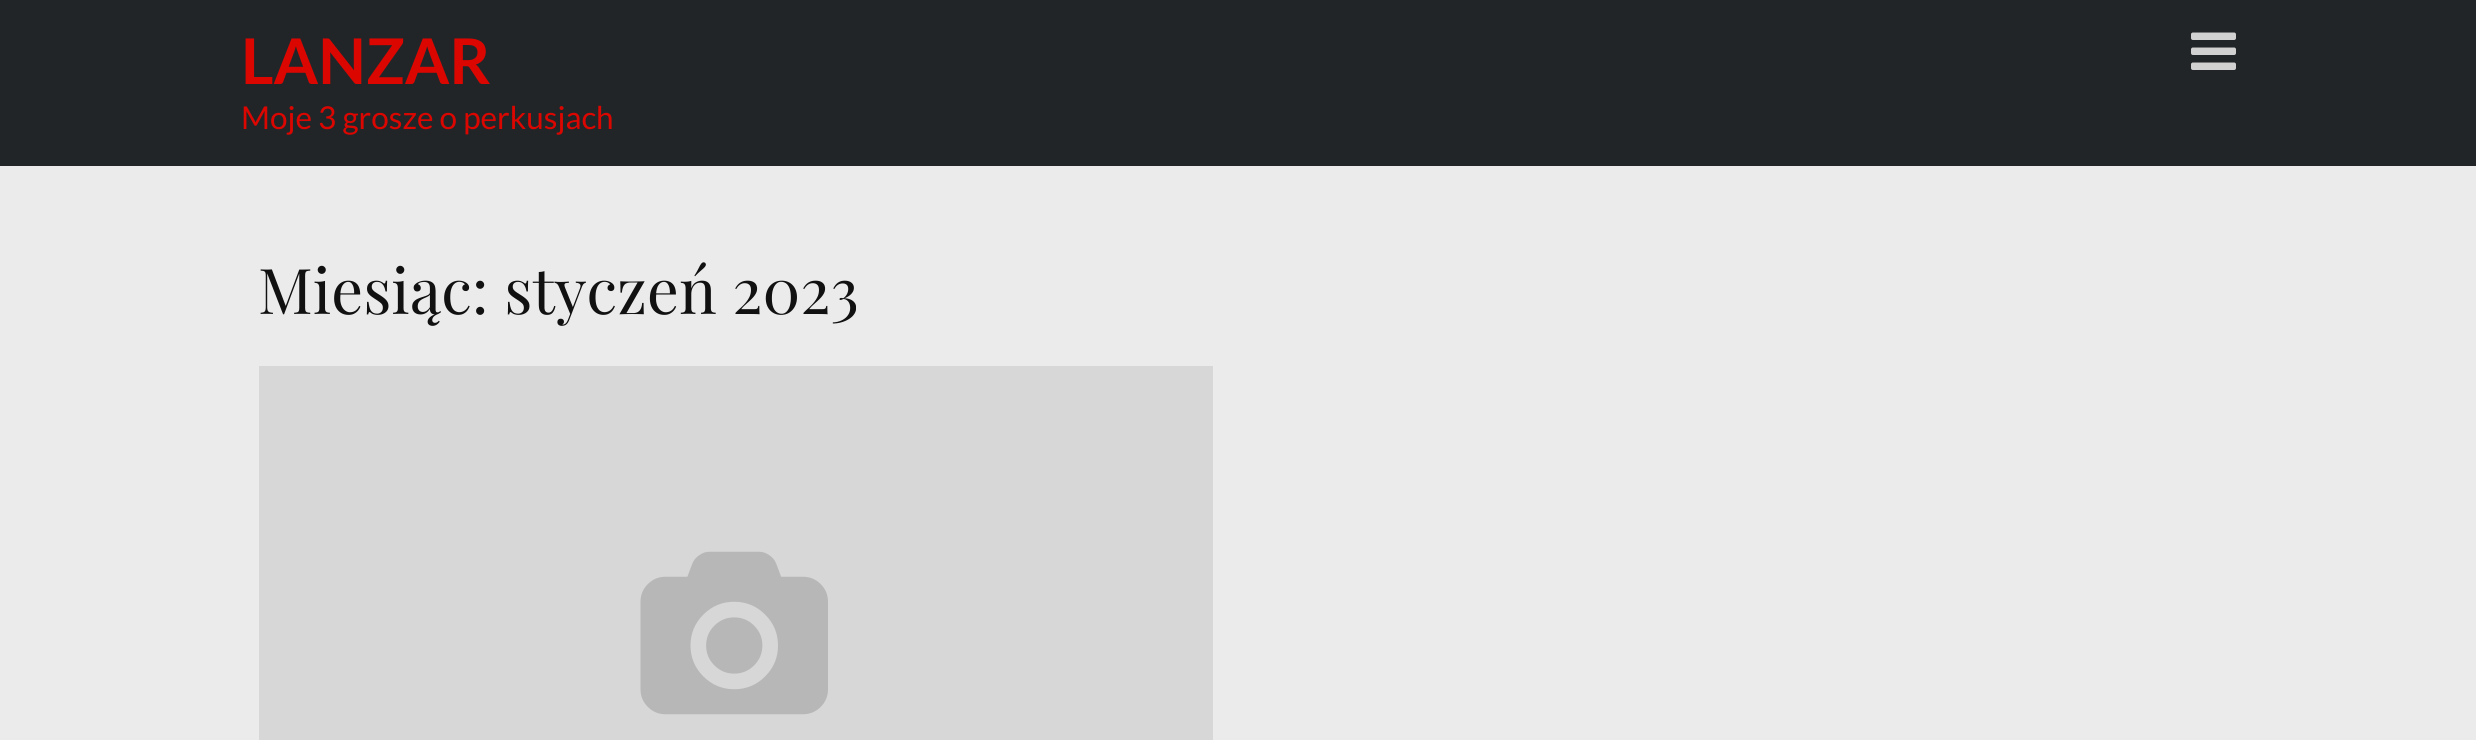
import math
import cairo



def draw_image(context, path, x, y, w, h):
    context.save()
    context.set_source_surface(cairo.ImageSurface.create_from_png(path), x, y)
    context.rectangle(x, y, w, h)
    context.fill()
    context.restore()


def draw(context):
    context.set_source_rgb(235 / 255, 235 / 255, 235 / 255)
    context.paint()
    context.set_source_rgb(34 / 255, 37 / 255, 40 / 255)
    context.rectangle(0, 0, 2476, 166)
    context.fill()
    draw_image(context, "images/1.png", 2191, 32, 45, 38)
    context.set_source_rgb(215 / 255, 215 / 255, 215 / 255)
    context.rectangle(259, 366, 954, 374)
    context.fill()
    draw_image(context, "images/2.png", 640, 551, 188, 164)
    context.select_font_face("Lato", cairo.FontSlant.NORMAL, cairo.FontWeight.BOLD)
    context.set_font_size(63)
    context.set_source_rgb(219 / 255, 6 / 255, 0)
    context.move_to(241, 84)
    context.show_text("LANZAR")
    context.select_font_face("Lato")
    context.set_font_size(31.5)
    context.move_to(241, 129)
    context.show_text("Moje 3 grosze o perkusjach")
    context.select_font_face("Playfair Display")
    context.set_font_size(63)
    context.set_source_rgb(17 / 255, 17 / 255, 17 / 255)
    context.move_to(258, 314)
    context.show_text("Miesiąc: styczeń 2023")


surface = cairo.ImageSurface(cairo.Format.RGB24, 2476, 740)
context = cairo.Context(surface)
options = cairo.FontOptions()
options.set_hint_metrics(cairo.HintMetrics.OFF)
options.set_hint_style(cairo.HintStyle.NONE)
context.set_font_options(options)
context.set_miter_limit(4)
draw(context)
surface.write_to_png("out.png")
